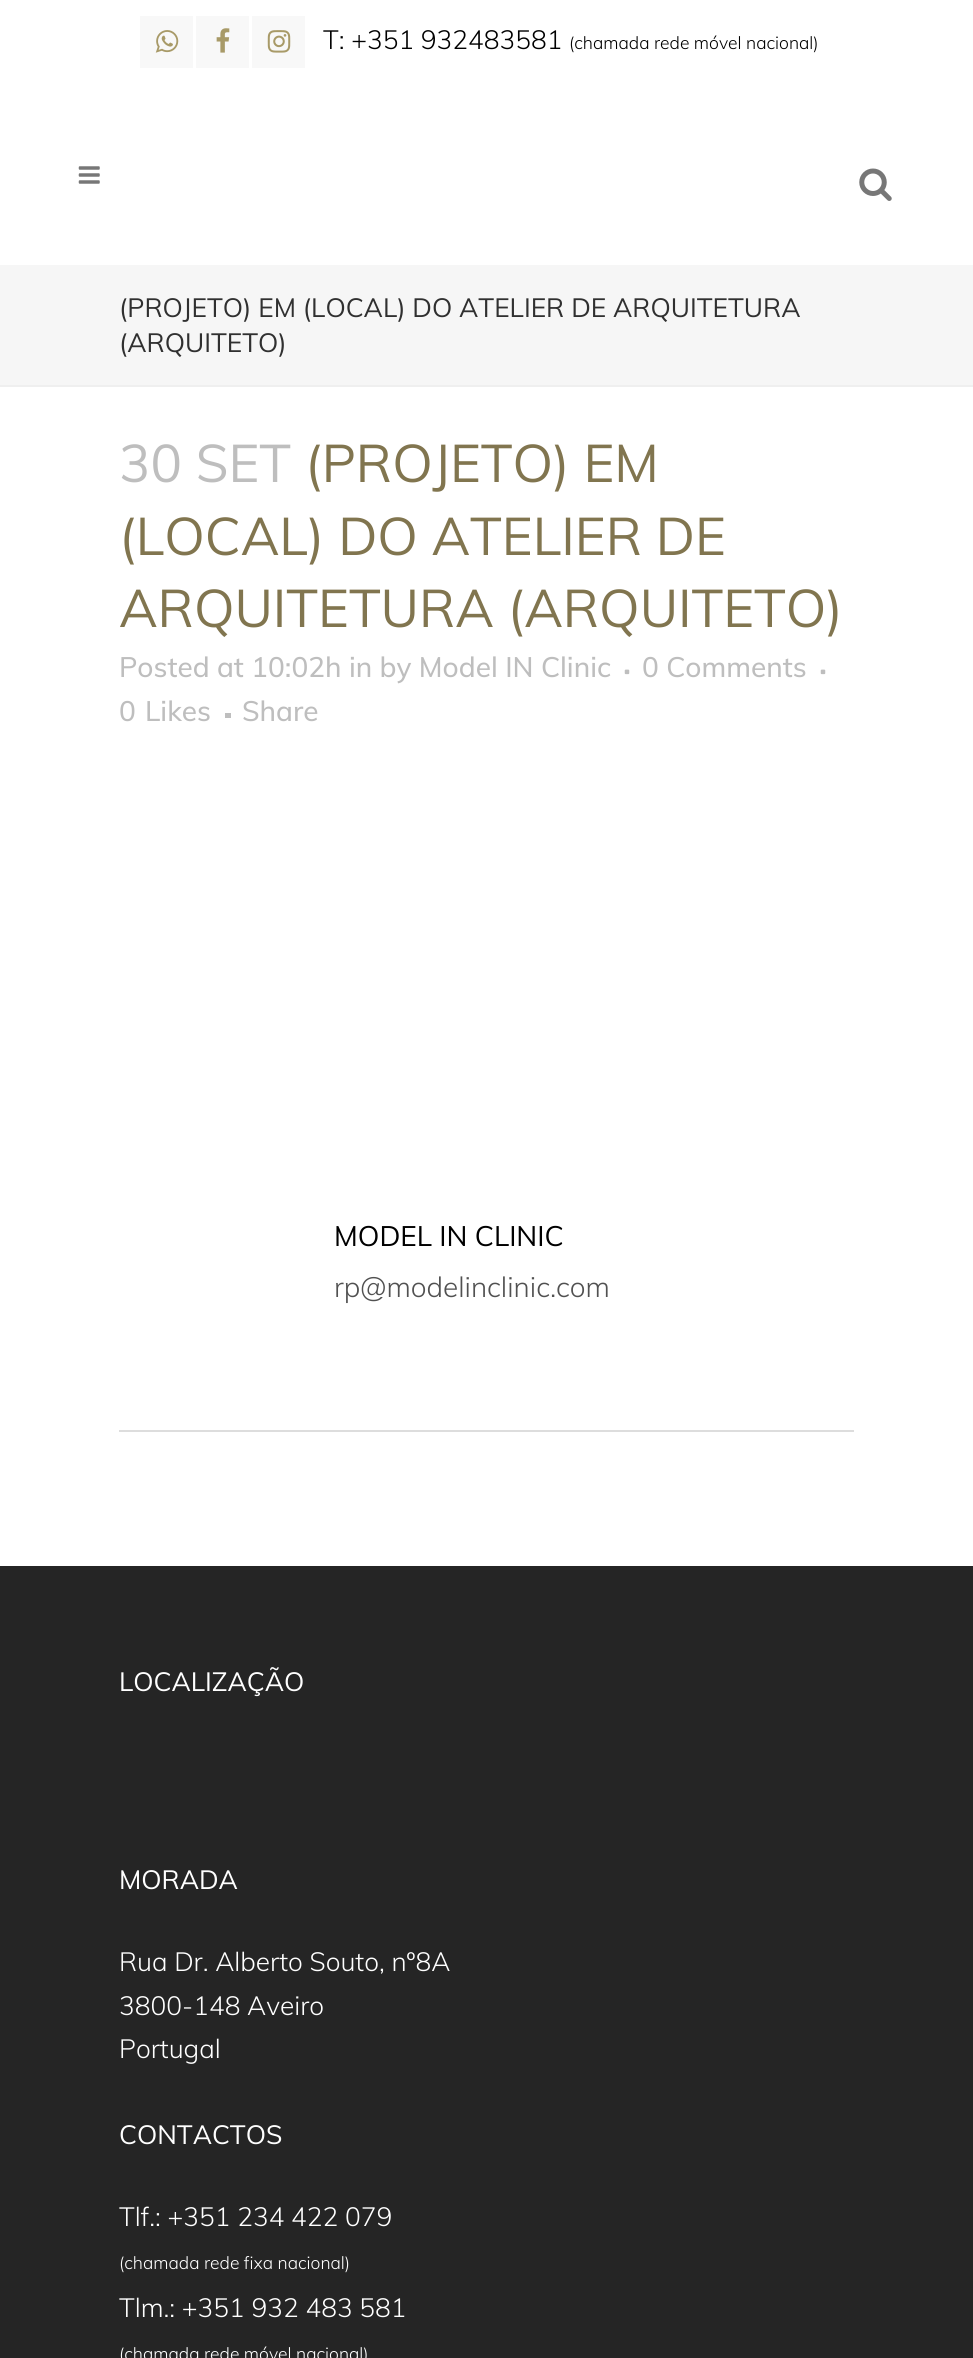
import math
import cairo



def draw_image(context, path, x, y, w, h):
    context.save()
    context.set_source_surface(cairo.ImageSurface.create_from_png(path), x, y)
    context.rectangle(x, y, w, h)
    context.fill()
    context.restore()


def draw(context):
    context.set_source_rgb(1, 1, 1)
    context.paint()
    context.set_source_rgb(248 / 255, 248 / 255, 248 / 255)
    context.rectangle(140, 16, 53, 52)
    context.fill()
    draw_image(context, "images/1.png", 155, 30, 24, 23)
    context.rectangle(196, 16, 53, 52)
    context.fill()
    draw_image(context, "images/2.png", 216, 28, 14, 25)
    context.rectangle(252, 16, 53, 52)
    context.fill()
    draw_image(context, "images/3.png", 267, 30, 24, 23)
    draw_image(context, "images/4.png", 78, 166, 22, 18)
    draw_image(context, "images/5.png", 859, 168, 33, 33)
    context.set_source_rgb(246 / 255, 246 / 255, 246 / 255)
    context.rectangle(0, 265, 973, 120)
    context.fill()
    context.set_source_rgb(239 / 255, 239 / 255, 239 / 255)
    context.rectangle(0, 385, 973, 2)
    context.fill()
    draw_image(context, "images/6.png", 624, 669, 6, 6)
    draw_image(context, "images/6.png", 820, 669, 6, 6)
    context.set_source_rgb(190 / 255, 190 / 255, 190 / 255)
    context.rectangle(225, 713, 6, 5)
    context.fill()
    context.set_source_rgb(221 / 255, 221 / 255, 221 / 255)
    context.rectangle(119, 1430, 735, 2)
    context.fill()
    context.set_source_rgb(37 / 255, 37 / 255, 37 / 255)
    context.rectangle(0, 1566, 973, 792)
    context.fill()
    context.select_font_face("Muli Light")
    context.set_font_size(26.25)
    context.set_source_rgb(0, 0, 0)
    context.move_to(323, 49)
    context.show_text("T: +351 932483581")
    context.set_font_size(17.5)
    context.move_to(569, 49)
    context.show_text("(chamada rede móvel nacional)")
    context.select_font_face("Muli")
    context.set_font_size(26.25)
    context.set_source_rgb(48 / 255, 48 / 255, 48 / 255)
    context.move_to(119, 317)
    context.show_text("(PROJETO) EM (LOCAL) DO ATELIER DE ARQUITETURA")
    context.move_to(119, 352)
    context.show_text("(ARQUITETO)")
    context.set_font_size(52.5)
    context.set_source_rgb(190 / 255, 190 / 255, 190 / 255)
    context.move_to(119, 482)
    context.show_text("30 SET")
    context.set_source_rgb(129 / 255, 117 / 255, 79 / 255)
    context.move_to(305, 482)
    context.show_text("(PROJETO) EM")
    context.move_to(119, 555)
    context.show_text("(LOCAL) DO ATELIER DE")
    context.move_to(119, 627)
    context.show_text("ARQUITETURA (ARQUITETO)")
    context.select_font_face("Muli Medium")
    context.set_font_size(28)
    context.set_source_rgb(190 / 255, 190 / 255, 190 / 255)
    context.move_to(119, 677)
    context.show_text("Posted at 10:02h in by Model IN Clinic")
    context.move_to(642, 677)
    context.show_text("0 Comments")
    context.move_to(119, 721)
    context.show_text("0")
    context.move_to(145, 721)
    context.show_text("Likes")
    context.move_to(242, 721)
    context.show_text("Share")
    context.select_font_face("Muli")
    context.set_source_rgb(0, 0, 0)
    context.move_to(334, 1246)
    context.show_text("MODEL IN CLINIC")
    context.select_font_face("Muli Light")
    context.set_source_rgb(81 / 255, 81 / 255, 81 / 255)
    context.move_to(334, 1297)
    context.show_text("rp@modelinclinic.com")
    context.select_font_face("Muli")
    context.set_font_size(26.25)
    context.set_source_rgb(1, 1, 1)
    context.move_to(119, 1691)
    context.show_text("LOCALIZAÇÃO")
    context.move_to(119, 1889)
    context.show_text("MORADA")
    context.select_font_face("Muli Light")
    context.move_to(119, 1971)
    context.show_text("Rua Dr. Alberto Souto, nº8A")
    context.move_to(119, 2015)
    context.show_text("3800-148 Aveiro")
    context.move_to(119, 2058)
    context.show_text("Portugal")
    context.select_font_face("Muli")
    context.move_to(119, 2144)
    context.show_text("CONTACTOS")
    context.select_font_face("Muli Light")
    context.move_to(119, 2226)
    context.show_text("Tlf.: +351 234 422 079")
    context.set_font_size(17.5)
    context.move_to(119, 2269)
    context.show_text("(chamada rede fixa nacional)")
    context.set_font_size(26.25)
    context.move_to(119, 2317)
    context.show_text("Tlm.: +351 932 483 581")
    context.set_font_size(17.5)
    context.move_to(119, 2360)
    context.show_text("(chamada rede móvel nacional)")


surface = cairo.ImageSurface(cairo.Format.RGB24, 973, 2358)
context = cairo.Context(surface)
options = cairo.FontOptions()
options.set_hint_metrics(cairo.HintMetrics.OFF)
options.set_hint_style(cairo.HintStyle.NONE)
context.set_font_options(options)
context.set_miter_limit(4)
draw(context)
surface.write_to_png("out.png")
